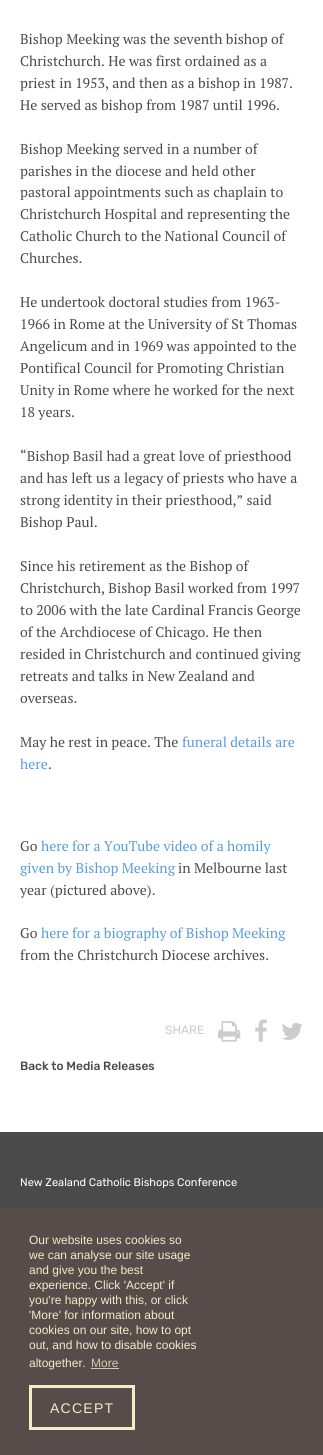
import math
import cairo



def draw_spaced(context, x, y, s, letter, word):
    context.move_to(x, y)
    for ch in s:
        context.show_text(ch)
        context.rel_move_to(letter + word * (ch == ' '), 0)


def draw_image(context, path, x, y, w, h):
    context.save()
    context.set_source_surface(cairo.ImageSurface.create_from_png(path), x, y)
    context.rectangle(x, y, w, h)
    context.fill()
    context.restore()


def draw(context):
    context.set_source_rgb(1, 1, 1)
    context.paint()
    draw_image(context, "images/1.png", 218, 1021, 23, 21)
    draw_image(context, "images/2.png", 255, 1019, 12, 23)
    draw_image(context, "images/3.png", 282, 1022, 21, 18)
    context.set_source_rgb(74 / 255, 74 / 255, 74 / 255)
    context.rectangle(0, 1132, 323, 76)
    context.fill()
    context.set_source_rgb(86 / 255, 76 / 255, 74 / 255)
    context.rectangle(0, 1208, 323, 247)
    context.fill()
    context.set_source_rgb(212 / 255, 203 / 255, 176 / 255)
    context.rectangle(91, 1368, 28, 1)
    context.fill()
    context.rectangle(30.5, 1386.5, 103, 42)
    context.set_source_rgb(244 / 255, 235 / 255, 201 / 255)
    context.set_line_width(3)
    context.stroke()
    context.select_font_face("PT Serif")
    context.set_font_size(14)
    context.set_source_rgb(74 / 255, 74 / 255, 74 / 255)
    context.move_to(20, 44)
    context.show_text("Bishop Meeking was the seventh bishop of")
    context.move_to(20, 66)
    context.show_text("Christchurch. He was first ordained as a")
    context.move_to(20, 88)
    context.show_text("priest in 1953, and then as a bishop in 1987.")
    context.move_to(20, 110)
    context.show_text("He served as bishop from 1987 until 1996.")
    context.move_to(20, 154)
    context.show_text("Bishop Meeking served in a number of")
    context.move_to(20, 176)
    context.show_text("parishes in the diocese and held other")
    context.move_to(20, 197)
    context.show_text("pastoral appointments such as chaplain to")
    context.move_to(20, 219)
    context.show_text("Christchurch Hospital and representing the")
    context.move_to(20, 241)
    context.show_text("Catholic Church to the National Council of")
    context.move_to(20, 263)
    context.show_text("Churches.")
    context.move_to(20, 307)
    context.show_text("He undertook doctoral studies from 1963-")
    context.move_to(20, 329)
    context.show_text("1966 in Rome at the University of St Thomas")
    context.move_to(20, 351)
    context.show_text("Angelicum and in 1969 was appointed to the")
    context.move_to(20, 373)
    context.show_text("Pontifical Council for Promoting Christian")
    context.move_to(20, 395)
    context.show_text("Unity in Rome where he worked for the next")
    context.move_to(20, 417)
    context.show_text("18 years.")
    context.move_to(20, 461)
    context.show_text("“Bishop Basil had a great love of priesthood")
    context.move_to(20, 483)
    context.show_text("and has left us a legacy of priests who have a")
    context.move_to(20, 505)
    context.show_text("strong identity in their priesthood,” said")
    context.move_to(20, 527)
    context.show_text("Bishop Paul.")
    context.move_to(20, 571)
    context.show_text("Since his retirement as the Bishop of")
    context.move_to(20, 593)
    context.show_text("Christchurch, Bishop Basil worked from 1997")
    context.move_to(20, 615)
    context.show_text("to 2006 with the late Cardinal Francis George")
    context.move_to(20, 637)
    context.show_text("of the Archdiocese of Chicago. He then")
    context.move_to(20, 659)
    context.show_text("resided in Christchurch and continued giving")
    context.move_to(20, 681)
    context.show_text("retreats and talks in New Zealand and")
    context.move_to(20, 703)
    context.show_text("overseas.")
    context.move_to(20, 747)
    context.show_text("May he rest in peace. The")
    context.set_source_rgb(88 / 255, 156 / 255, 221 / 255)
    context.move_to(182, 747)
    context.show_text("funeral details are")
    context.move_to(20, 769)
    context.show_text("here")
    context.set_source_rgb(74 / 255, 74 / 255, 74 / 255)
    context.move_to(48, 769)
    context.show_text(".")
    context.move_to(20, 851)
    context.show_text("Go")
    context.set_source_rgb(88 / 255, 156 / 255, 221 / 255)
    context.move_to(41, 851)
    context.show_text("here for a YouTube video of a homily")
    context.move_to(20, 873)
    context.show_text("given by Bishop Meeking")
    context.set_source_rgb(74 / 255, 74 / 255, 74 / 255)
    context.move_to(178, 873)
    context.show_text("in Melbourne last")
    context.move_to(20, 895)
    context.show_text("year (pictured above).")
    context.move_to(20, 938)
    context.show_text("Go")
    context.set_source_rgb(88 / 255, 156 / 255, 221 / 255)
    context.move_to(41, 938)
    context.show_text("here for a biography of Bishop Meeking")
    context.set_source_rgb(74 / 255, 74 / 255, 74 / 255)
    context.move_to(20, 960)
    context.show_text("from the Christchurch Diocese archives.")
    context.select_font_face("Rubik")
    context.set_font_size(12)
    context.set_source_rgb(204 / 255, 204 / 255, 204 / 255)
    context.move_to(165, 1034)
    context.show_text("SHARE")
    context.select_font_face("Rubik Medium")
    context.set_source_rgb(74 / 255, 74 / 255, 74 / 255)
    context.move_to(20, 1070)
    context.show_text("Back to Media Releases")
    context.select_font_face("Rubik")
    context.set_font_size(11)
    context.set_source_rgb(1, 1, 1)
    context.move_to(20, 1186)
    context.show_text("New Zealand Catholic Bishops Conference")
    context.select_font_face("Liberation Sans")
    context.set_font_size(12)
    context.set_source_rgb(244 / 255, 235 / 255, 201 / 255)
    context.move_to(29, 1244)
    context.show_text("Our website uses cookies so")
    context.move_to(29, 1259)
    context.show_text("we can analyse our site usage")
    context.move_to(29, 1274)
    context.show_text("and give you the best")
    context.move_to(29, 1289)
    context.show_text("experience. Click 'Accept' if")
    context.move_to(29, 1304)
    context.show_text("you're happy with this, or click")
    context.move_to(29, 1319)
    context.show_text("'More' for information about")
    context.move_to(29, 1334)
    context.show_text("cookies on our site, how to opt")
    context.move_to(29, 1349)
    context.show_text("out, and how to disable cookies")
    context.move_to(29, 1367)
    context.show_text("altogether.")
    context.set_source_rgb(212 / 255, 203 / 255, 176 / 255)
    context.move_to(91, 1367)
    context.show_text("More")
    context.set_font_size(14)
    context.set_source_rgb(244 / 255, 235 / 255, 201 / 255)
    draw_spaced(context, 50, 1413, "ACCEPT", 1.25, 0)


surface = cairo.ImageSurface(cairo.Format.RGB24, 323, 1455)
context = cairo.Context(surface)
options = cairo.FontOptions()
options.set_hint_metrics(cairo.HintMetrics.OFF)
options.set_hint_style(cairo.HintStyle.NONE)
context.set_font_options(options)
context.set_miter_limit(4)
draw(context)
surface.write_to_png("out.png")
